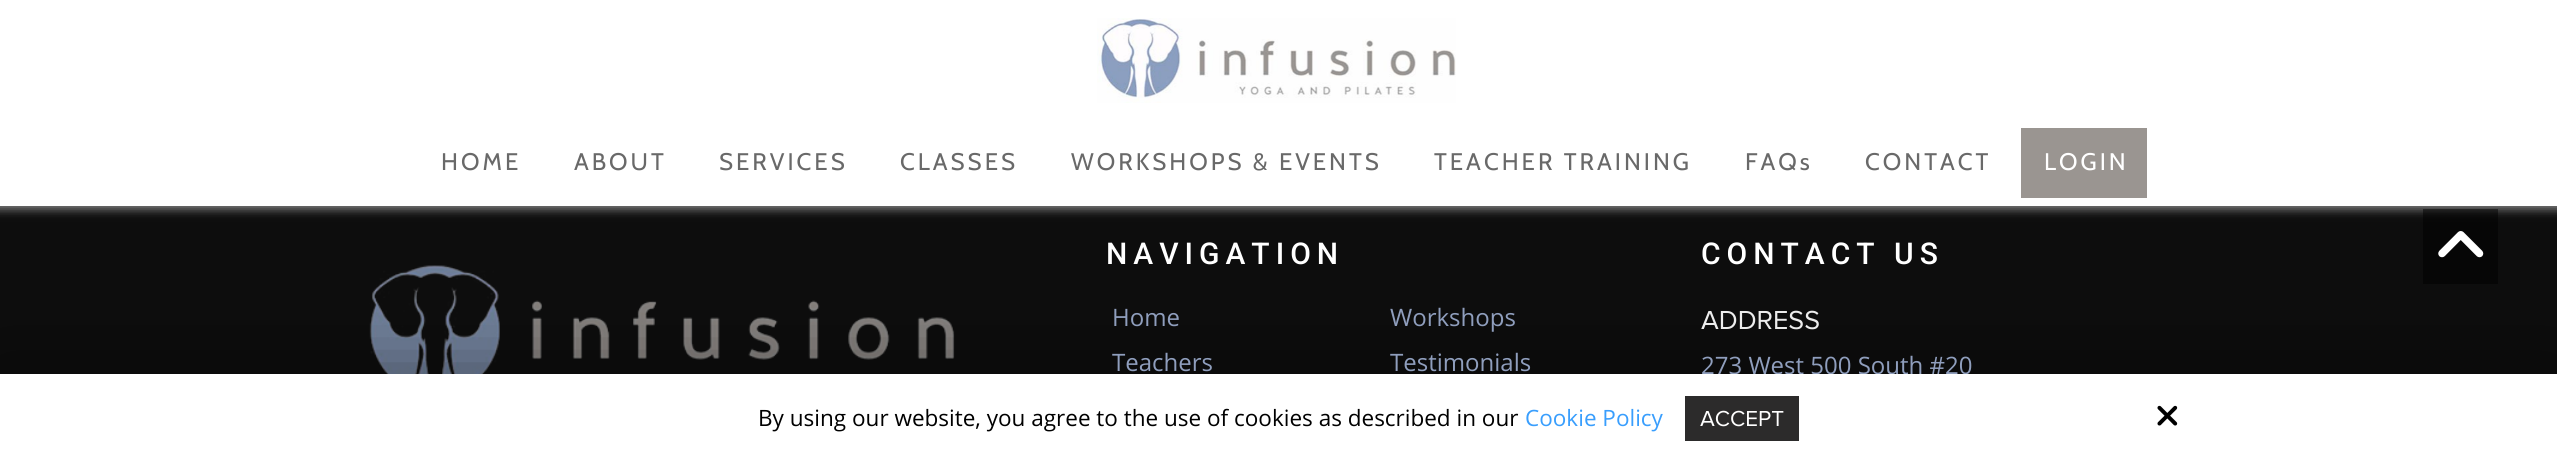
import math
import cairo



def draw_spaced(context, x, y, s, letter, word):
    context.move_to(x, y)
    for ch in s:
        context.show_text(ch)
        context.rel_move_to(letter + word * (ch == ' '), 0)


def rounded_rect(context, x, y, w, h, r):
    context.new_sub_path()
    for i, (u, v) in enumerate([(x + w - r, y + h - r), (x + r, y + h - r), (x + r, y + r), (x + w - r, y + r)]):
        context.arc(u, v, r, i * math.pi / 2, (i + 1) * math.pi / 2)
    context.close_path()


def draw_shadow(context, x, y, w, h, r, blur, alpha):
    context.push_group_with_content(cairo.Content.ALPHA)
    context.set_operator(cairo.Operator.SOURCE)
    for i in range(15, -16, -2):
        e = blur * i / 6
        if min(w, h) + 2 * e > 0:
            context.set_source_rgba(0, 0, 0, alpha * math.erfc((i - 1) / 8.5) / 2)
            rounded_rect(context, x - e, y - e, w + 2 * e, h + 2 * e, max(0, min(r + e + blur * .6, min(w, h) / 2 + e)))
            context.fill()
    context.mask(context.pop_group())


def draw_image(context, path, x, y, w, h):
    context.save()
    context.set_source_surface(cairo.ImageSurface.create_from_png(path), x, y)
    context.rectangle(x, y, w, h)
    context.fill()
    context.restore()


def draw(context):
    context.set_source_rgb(13 / 255, 13 / 255, 13 / 255)
    context.paint()
    context.set_source_rgb(136 / 255, 136 / 255, 136 / 255)
    draw_shadow(context, -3, -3, 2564, 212, 0, 5, 1)
    context.set_source_rgb(1, 1, 1)
    context.rectangle(0, 0, 2557, 206)
    context.fill()
    draw_image(context, "images/1.png", 1097, 18, 359, 85)
    context.set_source_rgb(154 / 255, 149 / 255, 145 / 255)
    context.rectangle(2021, 128, 126, 70)
    context.fill()
    draw_image(context, "images/2.png", 369, 265, 586, 109)
    context.set_source_rgba(0, 0, 0, 0.5)
    context.rectangle(2423, 209, 75, 75)
    context.fill()
    draw_image(context, "images/3.png", 2438, 231, 46, 27)
    context.set_source_rgb(0, 0, 0)
    draw_shadow(context, 0, 381, 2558, 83, 0, 37.5, 0.5)
    context.select_font_face("Cabin")
    context.set_font_size(24)
    context.set_source_rgb(105 / 255, 105 / 255, 105 / 255)
    draw_spaced(context, 441, 170, "HOME", 3, 0)
    draw_spaced(context, 574, 170, "ABOUT", 3, 0)
    draw_spaced(context, 719, 170, "SERVICES", 3, 0)
    draw_spaced(context, 900, 170, "CLASSES", 3, 0)
    draw_spaced(context, 1071, 170, "WORKSHOPS & EVENTS", 3, 0)
    draw_spaced(context, 1434, 170, "TEACHER TRAINING", 3, 0)
    draw_spaced(context, 1745, 170, "FAQs", 3, 0)
    draw_spaced(context, 1865, 170, "CONTACT", 3, 0)
    context.set_source_rgb(1, 1, 1)
    draw_spaced(context, 2044, 170, "LOGIN", 3, 0)
    context.select_font_face("Roboto Medium")
    context.set_font_size(30)
    draw_spaced(context, 1106, 264, "NAVIGATION", 6, 0)
    context.select_font_face("Open Sans")
    context.set_font_size(24)
    context.set_source_rgb(143 / 255, 158 / 255, 189 / 255)
    context.move_to(1112, 326)
    context.show_text("Home")
    context.move_to(1112, 371)
    context.show_text("Teachers")
    context.move_to(1390, 326)
    context.show_text("Workshops")
    context.move_to(1390, 371)
    context.show_text("Testimonials")
    context.select_font_face("Roboto Medium")
    context.set_font_size(30)
    context.set_source_rgb(1, 1, 1)
    draw_spaced(context, 1701, 264, "CONTACT US", 6, 0)
    context.select_font_face("Proxima Nova")
    context.set_font_size(27)
    context.set_source_rgb(236 / 255, 236 / 255, 236 / 255)
    context.move_to(1701, 329)
    context.show_text("ADDRESS")
    context.select_font_face("Open Sans")
    context.set_font_size(24)
    context.set_source_rgb(143 / 255, 158 / 255, 189 / 255)
    context.move_to(1701, 374)
    context.show_text("273 West 500 South #20")
    context.set_source_rgb(1, 1, 1)
    context.rectangle(0, 374, 2557, 81)
    context.fill()
    context.set_font_size(22.5)
    context.set_source_rgb(0, 0, 0)
    context.move_to(758, 426)
    context.show_text("By using our website, you agree to the use of cookies as described in our")
    context.set_source_rgb(57 / 255, 158 / 255, 253 / 255)
    context.move_to(1525, 426)
    context.show_text("Cookie Policy")
    context.set_source_rgb(44 / 255, 43 / 255, 43 / 255)
    context.rectangle(1685, 396, 114, 45)
    context.fill()
    context.select_font_face("Proxima Nova")
    context.set_source_rgb(1, 1, 1)
    context.move_to(1700, 426)
    context.show_text("ACCEPT")
    draw_image(context, "images/4.png", 2157, 405, 21, 21)


surface = cairo.ImageSurface(cairo.Format.RGB24, 2557, 455)
context = cairo.Context(surface)
options = cairo.FontOptions()
options.set_hint_metrics(cairo.HintMetrics.OFF)
options.set_hint_style(cairo.HintStyle.NONE)
context.set_font_options(options)
context.set_miter_limit(4)
draw(context)
surface.write_to_png("out.png")
